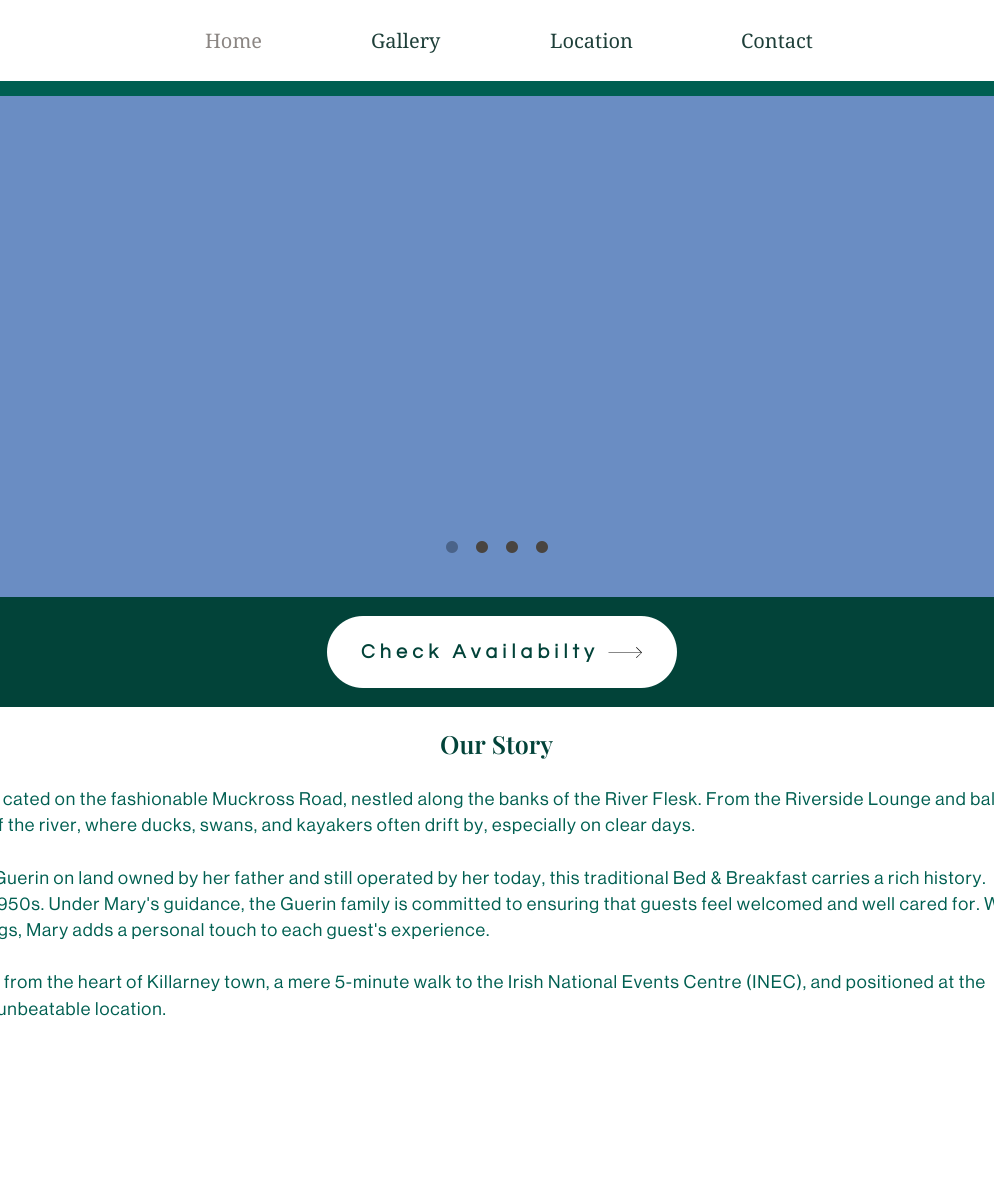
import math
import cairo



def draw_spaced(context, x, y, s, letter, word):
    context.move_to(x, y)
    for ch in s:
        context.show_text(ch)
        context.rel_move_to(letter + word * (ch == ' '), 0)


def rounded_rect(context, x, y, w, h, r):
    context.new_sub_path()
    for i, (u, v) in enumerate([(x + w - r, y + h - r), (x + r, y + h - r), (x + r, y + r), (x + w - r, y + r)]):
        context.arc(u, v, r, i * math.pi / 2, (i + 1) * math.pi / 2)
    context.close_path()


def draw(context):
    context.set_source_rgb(1, 1, 1)
    context.paint()
    context.set_source_rgb(0, 95 / 255, 81 / 255)
    context.rectangle(0, 81, 994, 15)
    context.fill()
    context.set_source_rgb(106 / 255, 141 / 255, 195 / 255)
    context.rectangle(0, 96, 994, 501)
    context.fill()
    context.set_source_rgb(74 / 255, 99 / 255, 137 / 255)
    context.arc(452, 547, 6, 0, 2 * math.pi)
    context.fill()
    context.set_source_rgb(73 / 255, 68 / 255, 64 / 255)
    context.arc(482, 547, 6, 0, 2 * math.pi)
    context.fill()
    context.arc(512, 547, 6, 0, 2 * math.pi)
    context.fill()
    context.arc(542, 547, 6, 0, 2 * math.pi)
    context.fill()
    context.set_source_rgb(2 / 255, 67 / 255, 57 / 255)
    context.rectangle(0, 597, 994, 110)
    context.fill()
    context.set_source_rgb(1, 1, 1)
    rounded_rect(context, 327, 616, 350, 72, 36)
    context.fill()
    context.set_source_rgb(0, 0, 0)
    context.new_path()
    context.move_to(636.5, 647)
    context.line_to(636, 647.5)
    context.line_to(641, 652.5)
    context.line_to(608.5, 652.5)
    context.line_to(608.5, 653)
    context.line_to(641, 653)
    context.line_to(636, 657.5)
    context.line_to(636.5, 658)
    context.line_to(642, 652.5)
    context.close_path()
    context.fill()
    context.select_font_face("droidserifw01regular")
    context.set_font_size(20)
    context.set_source_rgb(139 / 255, 134 / 255, 131 / 255)
    context.move_to(205, 48)
    context.show_text("Home")
    context.set_source_rgb(30 / 255, 63 / 255, 57 / 255)
    context.move_to(371, 48)
    context.show_text("Gallery")
    context.move_to(550, 48)
    context.show_text("Location")
    context.move_to(741, 48)
    context.show_text("Contact")
    context.select_font_face("Questrial", cairo.FontSlant.NORMAL, cairo.FontWeight.BOLD)
    context.set_source_rgb(2 / 255, 67 / 255, 57 / 255)
    draw_spaced(context, 361, 658, "Check Availabilty", 5, 0)
    context.select_font_face("Playfair Display SemiBold")
    context.set_font_size(25)
    context.move_to(440, 754)
    context.show_text("Our Story")
    context.select_font_face("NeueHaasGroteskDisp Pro")
    context.set_font_size(18)
    context.set_source_rgb(0, 95 / 255, 81 / 255)
    draw_spaced(context, 3, 805, "cated on the fashionable Muckross Road, nestled along the banks of the River Flesk. From the Riverside Lounge and bal", 0.9, 0)
    draw_spaced(context, -2, 831, "f the river, where ducks, swans, and kayakers often drift by, especially on clear days.", 0.9, 0)
    draw_spaced(context, -7, 884, "Guerin on land owned by her father and still operated by her today, this traditional Bed & Breakfast carries a rich history.", 0.9, 0)
    draw_spaced(context, -3, 910, "950s. Under Mary's guidance, the Guerin family is committed to ensuring that guests feel welcomed and well cared for. W", 0.9, 0)
    draw_spaced(context, -2, 936, "gs, Mary adds a personal touch to each guest's experience.", 0.9, 0)
    draw_spaced(context, 4, 988, "from the heart of Killarney town, a mere 5-minute walk to the Irish National Events Centre (INEC), and positioned at the", 0.9, 0)
    draw_spaced(context, -3, 1015, "unbeatable location.", 0.9, 0)


surface = cairo.ImageSurface(cairo.Format.RGB24, 994, 1200)
context = cairo.Context(surface)
options = cairo.FontOptions()
options.set_hint_metrics(cairo.HintMetrics.OFF)
options.set_hint_style(cairo.HintStyle.NONE)
context.set_font_options(options)
context.set_miter_limit(4)
draw(context)
surface.write_to_png("out.png")
